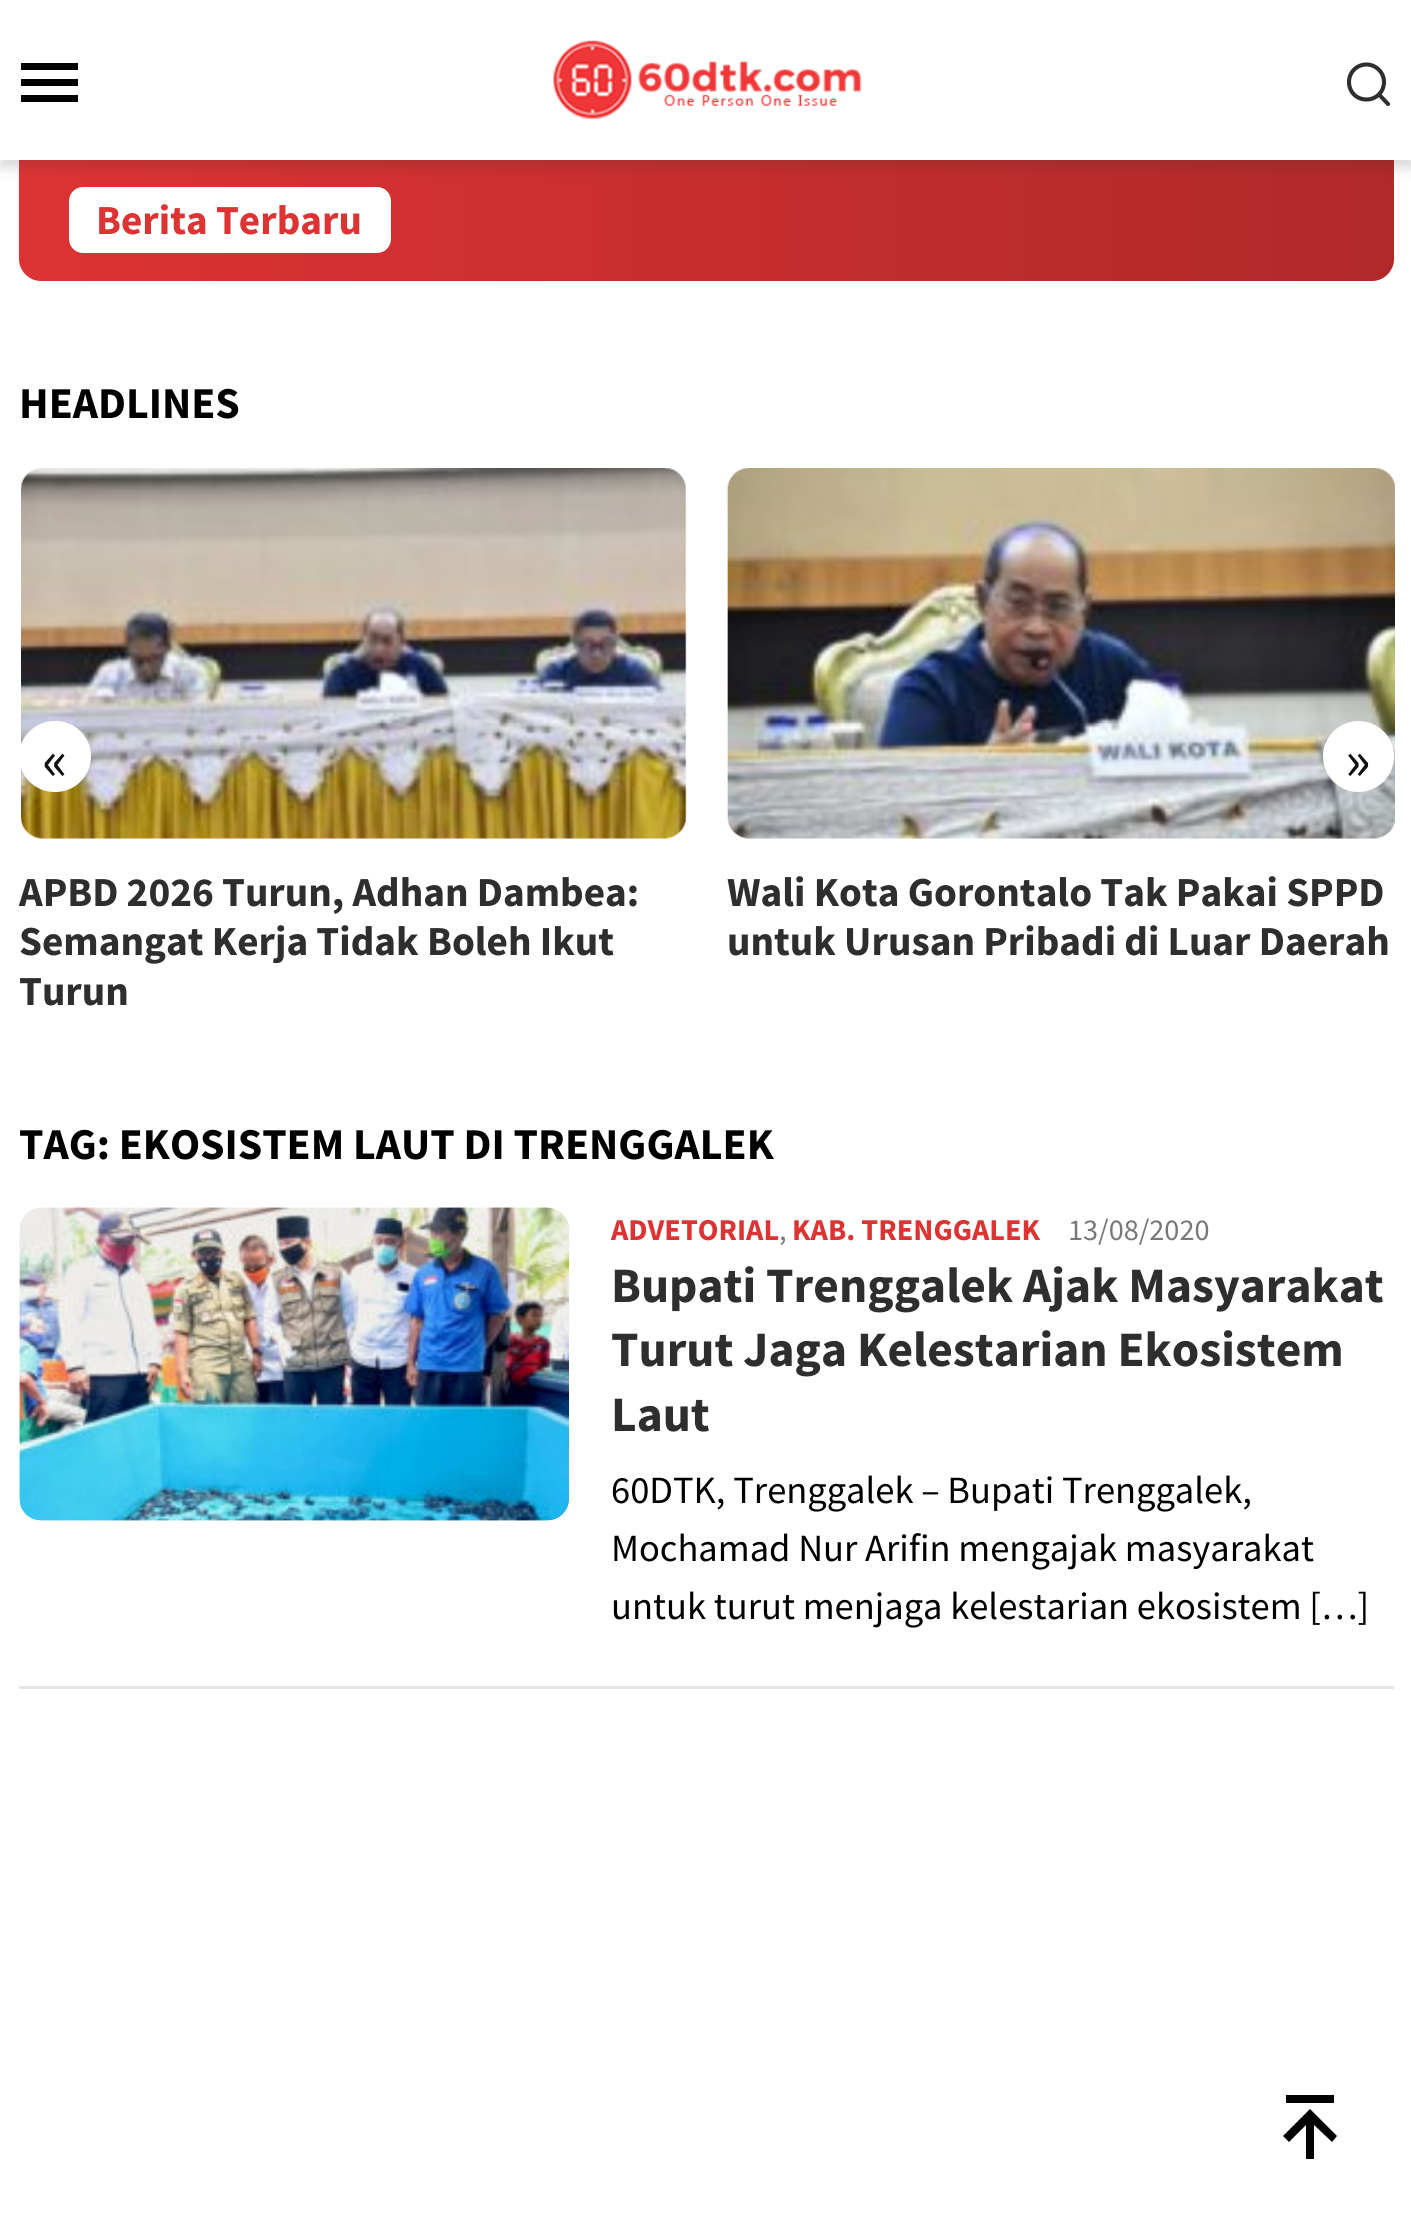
import math
import cairo



def rounded_rect(context, x, y, w, h, r):
    context.new_sub_path()
    for i, (u, v) in enumerate([(x + w - r, y + h - r), (x + r, y + h - r), (x + r, y + r), (x + w - r, y + r)]):
        context.arc(u, v, r, i * math.pi / 2, (i + 1) * math.pi / 2)
    context.close_path()


def draw_shadow(context, x, y, w, h, r, blur, alpha):
    context.push_group_with_content(cairo.Content.ALPHA)
    context.set_operator(cairo.Operator.SOURCE)
    for i in range(15, -16, -2):
        e = blur * i / 6
        if min(w, h) + 2 * e > 0:
            context.set_source_rgba(0, 0, 0, alpha * math.erfc((i - 1) / 8.5) / 2)
            rounded_rect(context, x - e, y - e, w + 2 * e, h + 2 * e, max(0, min(r + e + blur * .6, min(w, h) / 2 + e)))
            context.fill()
    context.mask(context.pop_group())


def draw_image(context, path, x, y, w, h):
    context.save()
    context.set_source_surface(cairo.ImageSurface.create_from_png(path), x, y)
    context.rectangle(x, y, w, h)
    context.fill()
    context.restore()


def draw(context):
    context.set_source_rgb(1, 1, 1)
    context.paint()
    context.set_source_rgb(221 / 255, 51 / 255, 51 / 255)
    context.new_path()
    context.move_to(19, 160)
    context.line_to(1394, 160)
    context.line_to(1394, 259)
    context.curve_to(1394, 271, 1384, 281, 1372, 281)
    context.line_to(41, 281)
    context.curve_to(29, 281, 19, 271, 19, 259)
    context.close_path()
    context.fill()
    gradient = cairo.LinearGradient(19, 220, 1394, 220)
    gradient.add_color_stop_rgba(0, 0, 0, 0, 0)
    gradient.add_color_stop_rgba(1, 0, 0, 0, 0.2)
    context.set_source(gradient)
    context.new_path()
    context.move_to(19, 160)
    context.line_to(1394, 160)
    context.line_to(1394, 259)
    context.curve_to(1394, 271, 1384, 281, 1372, 281)
    context.line_to(41, 281)
    context.curve_to(29, 281, 19, 271, 19, 259)
    context.close_path()
    context.fill()
    context.set_source_rgb(52 / 255, 52 / 255, 52 / 255)
    draw_shadow(context, 0, 8, 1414, 160, 0, 5.5, 0.18)
    context.set_source_rgb(1, 1, 1)
    context.rectangle(0, 0, 1411, 160)
    context.fill()
    context.set_source_rgb(0, 0, 0)
    context.new_path()
    context.move_to(21, 63)
    context.line_to(78, 63)
    context.line_to(78, 70)
    context.line_to(21, 70)
    context.line_to(21, 63)
    context.move_to(21, 79)
    context.line_to(78, 79)
    context.line_to(78, 86)
    context.line_to(21, 86)
    context.line_to(21, 79)
    context.move_to(21, 95)
    context.line_to(78, 95)
    context.line_to(78, 102)
    context.line_to(21, 102)
    context.close_path()
    context.fill()
    draw_image(context, "images/1.png", 553, 40, 309, 79)
    context.new_path()
    context.move_to(1388, 104)
    context.line_to(1379, 94.5)
    context.move_to(1384, 82)
    context.curve_to(1384, 92, 1376, 99.5, 1366.5, 99.5)
    context.curve_to(1356.5, 99.5, 1349, 92, 1349, 82)
    context.curve_to(1349, 72.5, 1356.5, 64.5, 1366.5, 64.5)
    context.curve_to(1376, 64.5, 1384, 72.5, 1384, 82)
    context.close_path()
    context.set_source_rgb(46 / 255, 46 / 255, 46 / 255)
    context.set_line_width(4.1)
    context.set_line_cap(cairo.LineCap.ROUND)
    context.stroke()
    context.set_source_rgb(1, 1, 1)
    rounded_rect(context, 69, 187, 322, 66, 14)
    context.fill()
    draw_image(context, "images/2.png", 21, 468, 666, 371)
    rounded_rect(context, 19, 721, 72, 71, 35.5)
    context.fill()
    draw_image(context, "images/3.png", 727, 468, 668, 371)
    context.arc(1358.5, 756.5, 35.5, 0, 2 * math.pi)
    context.fill()
    context.set_source_rgb(229 / 255, 229 / 255, 229 / 255)
    context.rectangle(19, 1686, 1375, 3)
    context.fill()
    draw_image(context, "images/4.png", 19, 1207, 550, 314)
    context.set_source_rgb(0, 0, 0)
    context.new_path()
    context.move_to(1286, 2095)
    context.line_to(1334, 2095)
    context.line_to(1334, 2103)
    context.line_to(1286, 2103)
    context.close_path()
    context.move_to(1289, 2142)
    context.line_to(1306, 2125)
    context.line_to(1306, 2159)
    context.line_to(1314, 2159)
    context.line_to(1314, 2125)
    context.line_to(1332, 2142)
    context.line_to(1337, 2136)
    context.line_to(1310, 2109)
    context.line_to(1283, 2136)
    context.close_path()
    context.fill()
    context.select_font_face("Source Sans Pro", cairo.FontSlant.NORMAL, cairo.FontWeight.BOLD)
    context.set_font_size(41.25)
    context.set_source_rgb(221 / 255, 51 / 255, 51 / 255)
    context.move_to(96, 234)
    context.show_text("Berita Terbaru")
    context.set_font_size(44)
    context.set_source_rgb(0, 0, 0)
    context.move_to(19, 418)
    context.show_text("HEADLINES")
    context.select_font_face("Source Sans Pro")
    context.set_font_size(60)
    context.set_source_rgb(17 / 255, 17 / 255, 17 / 255)
    context.move_to(42, 780)
    context.show_text("«")
    context.move_to(1345, 780)
    context.show_text("»")
    context.select_font_face("Source Sans Pro", cairo.FontSlant.NORMAL, cairo.FontWeight.BOLD)
    context.set_font_size(41.25)
    context.set_source_rgb(46 / 255, 46 / 255, 46 / 255)
    context.move_to(19, 906)
    context.show_text("APBD 2026 Turun, Adhan Dambea:")
    context.move_to(19, 955)
    context.show_text("Semangat Kerja Tidak Boleh Ikut")
    context.move_to(19, 1005)
    context.show_text("Turun")
    context.move_to(727, 906)
    context.show_text("Wali Kota Gorontalo Tak Pakai SPPD")
    context.move_to(727, 955)
    context.show_text("untuk Urusan Pribadi di Luar Daerah")
    context.set_font_size(44)
    context.set_source_rgb(0, 0, 0)
    context.move_to(19, 1159)
    context.show_text("TAG: EKOSISTEM LAUT DI TRENGGALEK")
    context.set_font_size(30.25)
    context.set_source_rgb(221 / 255, 51 / 255, 51 / 255)
    context.move_to(611, 1240)
    context.show_text("ADVETORIAL")
    context.select_font_face("Source Sans Pro")
    context.set_source_rgb(120 / 255, 120 / 255, 120 / 255)
    context.move_to(779, 1240)
    context.show_text(",")
    context.select_font_face("Source Sans Pro", cairo.FontSlant.NORMAL, cairo.FontWeight.BOLD)
    context.set_source_rgb(221 / 255, 51 / 255, 51 / 255)
    context.move_to(792, 1240)
    context.show_text("KAB. TRENGGALEK")
    context.select_font_face("Source Sans Pro")
    context.set_source_rgb(120 / 255, 120 / 255, 120 / 255)
    context.move_to(1068, 1240)
    context.show_text("13/08/2020")
    context.select_font_face("Source Sans Pro", cairo.FontSlant.NORMAL, cairo.FontWeight.BOLD)
    context.set_font_size(49.5)
    context.set_source_rgb(46 / 255, 46 / 255, 46 / 255)
    context.move_to(611, 1302)
    context.show_text("Bupati Trenggalek Ajak Masyarakat")
    context.move_to(611, 1366)
    context.show_text("Turut Jaga Kelestarian Ekosistem")
    context.move_to(611, 1431)
    context.show_text("Laut")
    context.select_font_face("Source Sans Pro")
    context.set_font_size(38.5)
    context.set_source_rgb(0, 0, 0)
    context.move_to(611, 1503)
    context.show_text("60DTK, Trenggalek – Bupati Trenggalek,")
    context.move_to(611, 1561)
    context.show_text("Mochamad Nur Arifin mengajak masyarakat")
    context.move_to(611, 1619)
    context.show_text("untuk turut menjaga kelestarian ekosistem […]")


surface = cairo.ImageSurface(cairo.Format.RGB24, 1411, 2240)
context = cairo.Context(surface)
options = cairo.FontOptions()
options.set_hint_metrics(cairo.HintMetrics.OFF)
options.set_hint_style(cairo.HintStyle.NONE)
context.set_font_options(options)
context.set_miter_limit(4)
draw(context)
surface.write_to_png("out.png")
